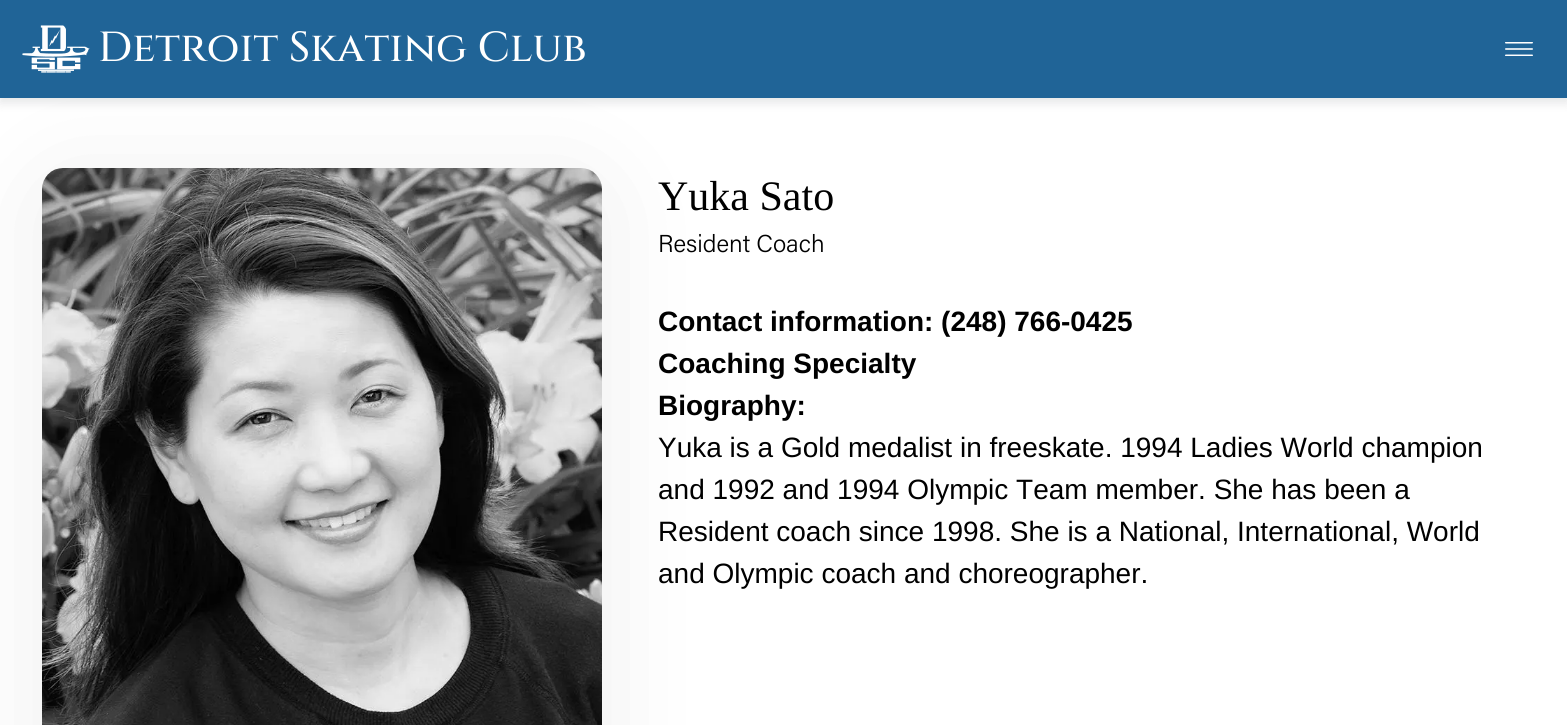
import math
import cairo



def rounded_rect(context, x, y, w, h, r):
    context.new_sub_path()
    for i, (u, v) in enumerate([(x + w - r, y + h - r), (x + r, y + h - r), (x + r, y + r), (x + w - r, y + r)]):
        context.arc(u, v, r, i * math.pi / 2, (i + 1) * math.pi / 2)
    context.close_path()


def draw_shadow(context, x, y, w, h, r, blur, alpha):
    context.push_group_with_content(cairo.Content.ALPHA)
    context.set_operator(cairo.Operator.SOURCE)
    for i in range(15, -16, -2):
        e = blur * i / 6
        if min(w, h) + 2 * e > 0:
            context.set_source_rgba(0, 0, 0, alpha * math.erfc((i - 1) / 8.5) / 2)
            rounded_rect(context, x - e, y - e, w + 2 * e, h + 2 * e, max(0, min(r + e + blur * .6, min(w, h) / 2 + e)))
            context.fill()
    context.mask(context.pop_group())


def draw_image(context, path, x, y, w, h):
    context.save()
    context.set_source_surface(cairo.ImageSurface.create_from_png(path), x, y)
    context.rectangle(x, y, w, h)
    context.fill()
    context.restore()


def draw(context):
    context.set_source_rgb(1, 1, 1)
    context.paint()
    context.set_source_rgb(0, 9 / 255, 15 / 255)
    draw_shadow(context, 0, 5, 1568, 98, 0, 5, 0.1)
    draw_shadow(context, 42, 182, 560, 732, 21, 56, 0.07)
    context.set_source_rgb(32 / 255, 100 / 255, 151 / 255)
    context.rectangle(0, 0, 1567, 98)
    context.fill()
    draw_image(context, "images/1.png", 22, 25, 68, 48)
    draw_image(context, "images/2.png", 1505, 42, 28, 14)
    draw_image(context, "images/3.png", 42, 168, 560, 557)
    context.select_font_face("Cinzel Medium")
    context.set_font_size(42)
    context.set_source_rgb(1, 1, 1)
    context.move_to(98, 61)
    context.show_text("Detroit Skating Club")
    context.select_font_face("Liberation Serif")
    context.set_source_rgb(0, 0, 0)
    context.move_to(658, 210)
    context.show_text("Yuka Sato")
    context.select_font_face("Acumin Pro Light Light")
    context.set_font_size(24.5)
    context.move_to(658, 252)
    context.show_text("Resident Coach")
    context.select_font_face("Liberation Sans", cairo.FontSlant.NORMAL, cairo.FontWeight.BOLD)
    context.set_font_size(28)
    context.move_to(658, 331)
    context.show_text("Contact information: (248) 766-0425")
    context.move_to(658, 373)
    context.show_text("Coaching Specialty")
    context.move_to(658, 415)
    context.show_text("Biography:")
    context.select_font_face("Liberation Sans")
    context.move_to(658, 457)
    context.show_text("Yuka is a Gold medalist in freeskate. 1994 Ladies World champion")
    context.move_to(658, 499)
    context.show_text("and 1992 and 1994 Olympic Team member. She has been a")
    context.move_to(658, 541)
    context.show_text("Resident coach since 1998. She is a National, International, World")
    context.move_to(658, 583)
    context.show_text("and Olympic coach and choreographer.")


surface = cairo.ImageSurface(cairo.Format.RGB24, 1567, 725)
context = cairo.Context(surface)
options = cairo.FontOptions()
options.set_hint_metrics(cairo.HintMetrics.OFF)
options.set_hint_style(cairo.HintStyle.NONE)
context.set_font_options(options)
context.set_miter_limit(4)
draw(context)
surface.write_to_png("out.png")
